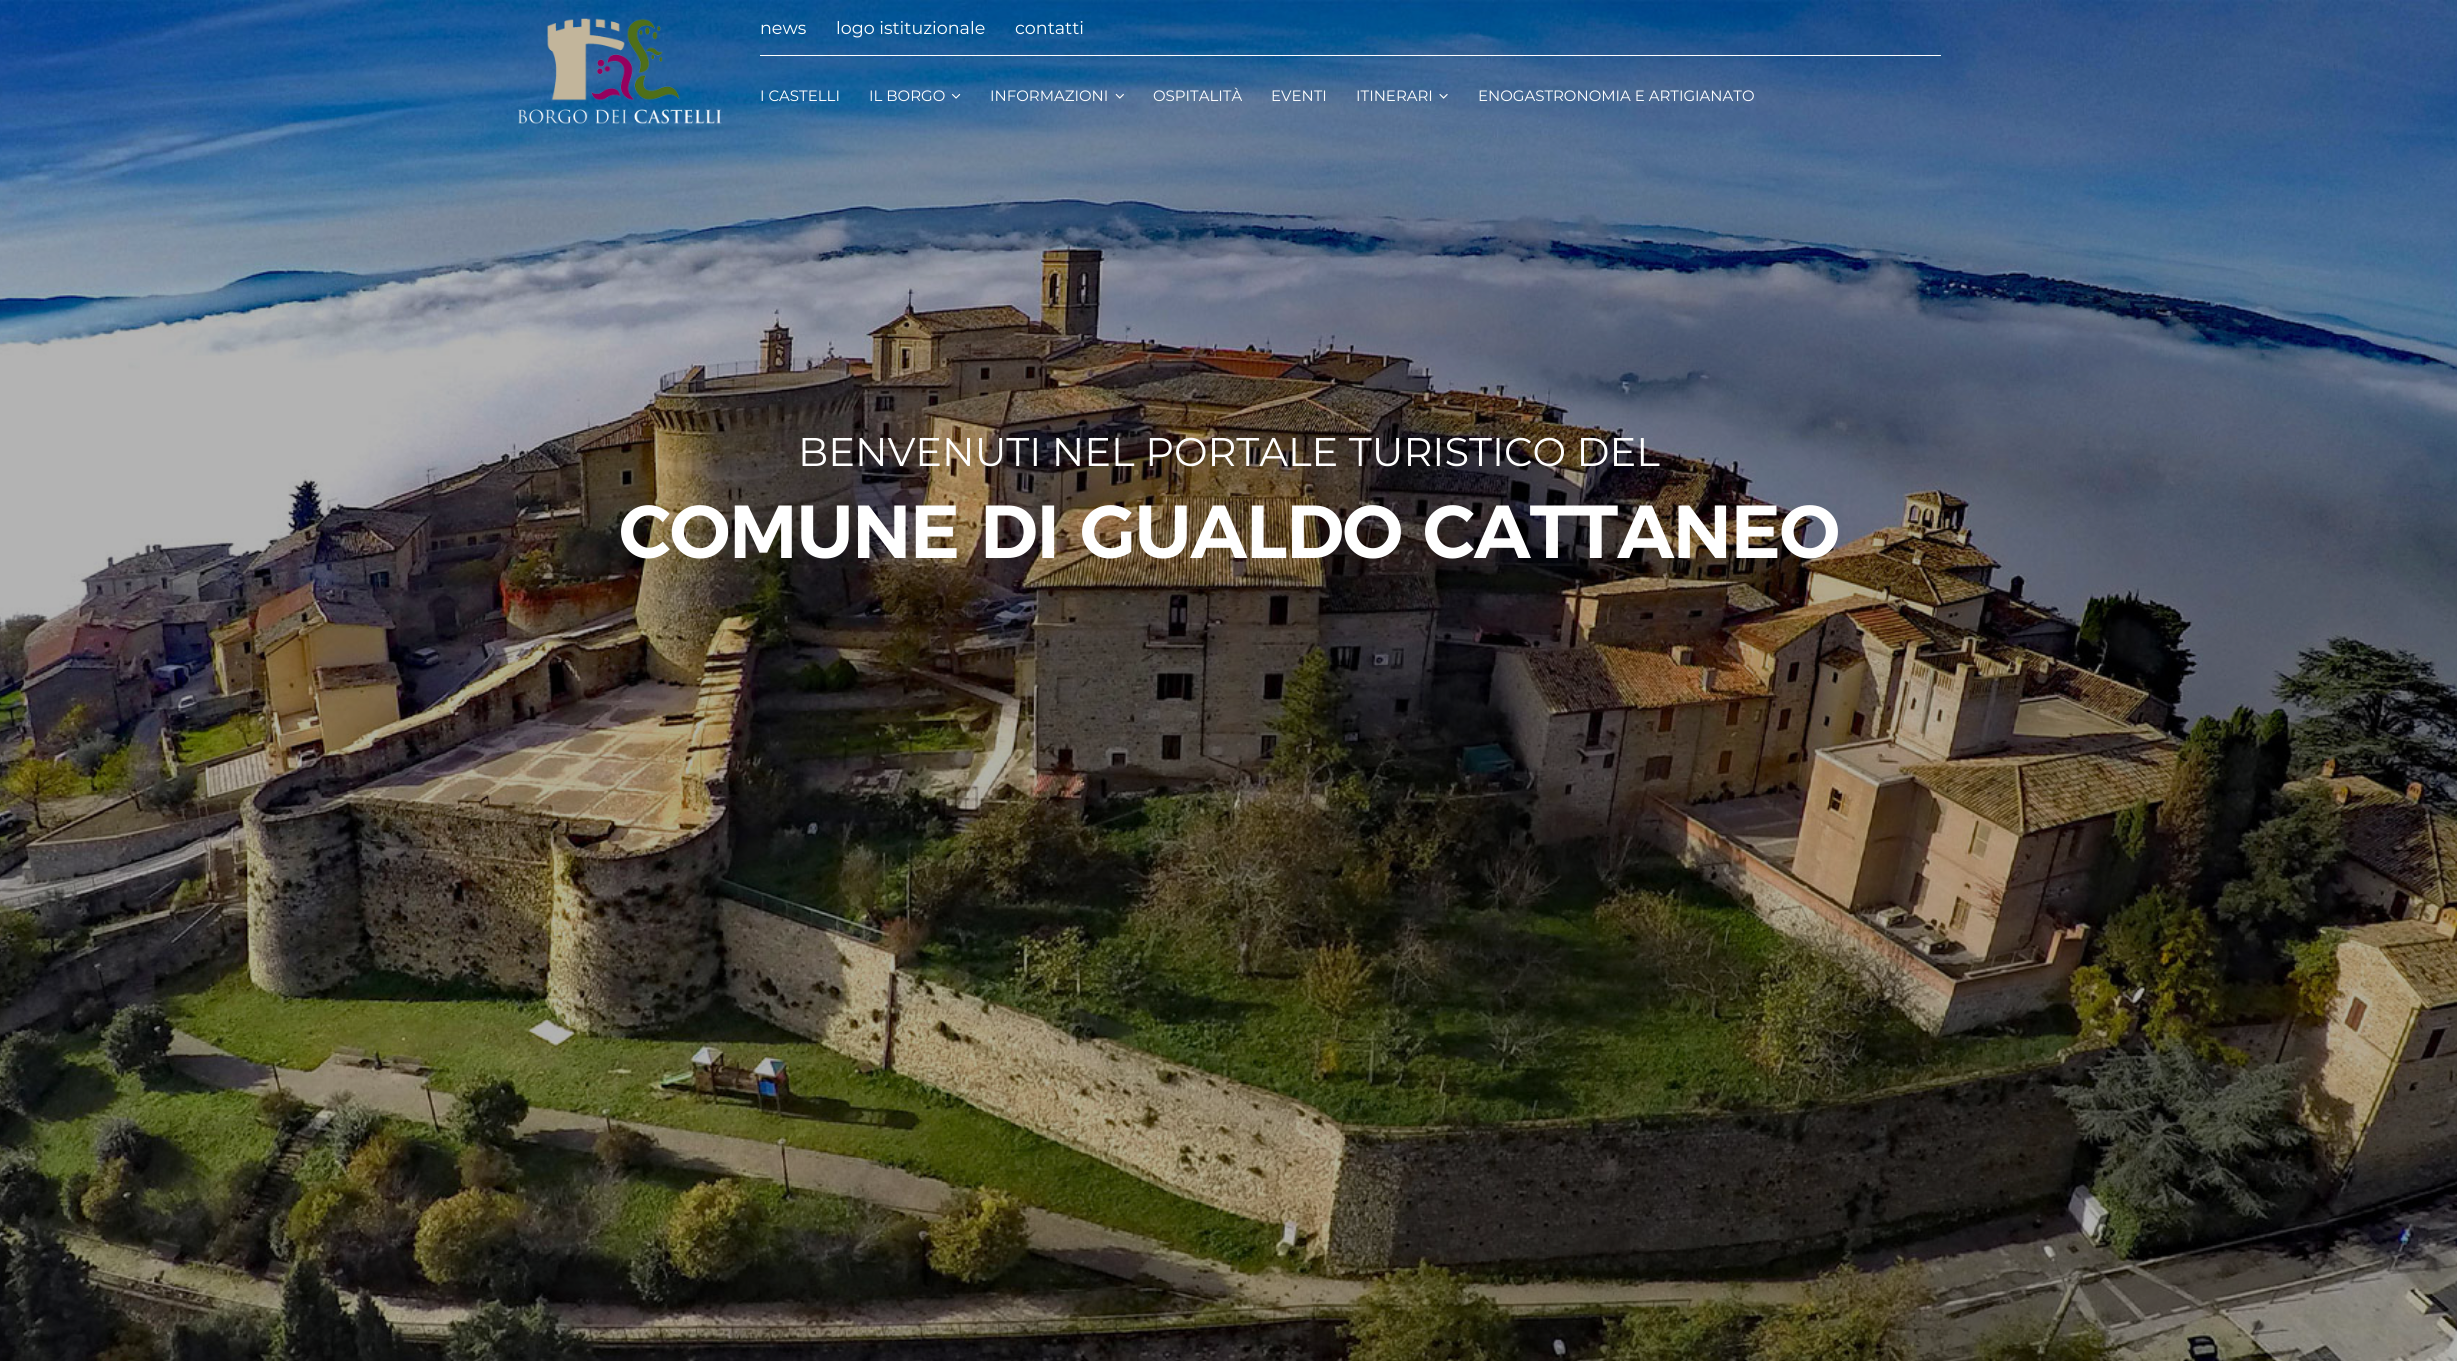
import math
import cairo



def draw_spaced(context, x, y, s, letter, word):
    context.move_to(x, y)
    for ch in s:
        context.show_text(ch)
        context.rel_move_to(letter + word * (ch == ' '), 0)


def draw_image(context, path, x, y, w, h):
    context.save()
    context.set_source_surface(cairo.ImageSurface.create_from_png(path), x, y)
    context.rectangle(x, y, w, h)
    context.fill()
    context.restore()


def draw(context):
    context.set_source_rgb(1, 1, 1)
    context.paint()
    draw_image(context, "images/1.png", 0, 0, 2457, 1361)
    draw_image(context, "images/2.png", 518, 18, 204, 106)
    context.set_source_rgb(1, 1, 1)
    context.rectangle(760, 55, 1181, 1)
    context.fill()
    draw_image(context, "images/3.png", 951, 93, 10, 6)
    draw_image(context, "images/4.png", 1115, 93, 9, 6)
    draw_image(context, "images/5.png", 1439, 93, 9, 6)
    context.select_font_face("Montserrat")
    context.set_font_size(17.5)
    context.move_to(760, 34)
    context.show_text("news")
    context.move_to(836, 34)
    context.show_text("logo istituzionale")
    context.move_to(1015, 34)
    context.show_text("contatti")
    context.set_font_size(15)
    context.move_to(760, 101)
    context.show_text("I CASTELLI")
    context.move_to(869, 101)
    context.show_text("IL BORGO")
    context.move_to(990, 101)
    context.show_text("INFORMAZIONI")
    context.move_to(1153, 101)
    context.show_text("OSPITALITÀ")
    context.move_to(1271, 101)
    context.show_text("EVENTI")
    context.move_to(1356, 101)
    context.show_text("ITINERARI")
    context.move_to(1478, 101)
    context.show_text("ENOGASTRONOMIA E ARTIGIANATO")
    context.set_font_size(40)
    context.move_to(798, 466)
    context.show_text("BENVENUTI NEL PORTALE TURISTICO DEL")
    context.select_font_face("Montserrat SemiBold")
    context.set_font_size(75)
    draw_spaced(context, 619, 558, "COMUNE DI GUALDO CATTANEO", -1.25, 0)


surface = cairo.ImageSurface(cairo.Format.RGB24, 2457, 1361)
context = cairo.Context(surface)
options = cairo.FontOptions()
options.set_hint_metrics(cairo.HintMetrics.OFF)
options.set_hint_style(cairo.HintStyle.NONE)
context.set_font_options(options)
context.set_miter_limit(4)
draw(context)
surface.write_to_png("out.png")
